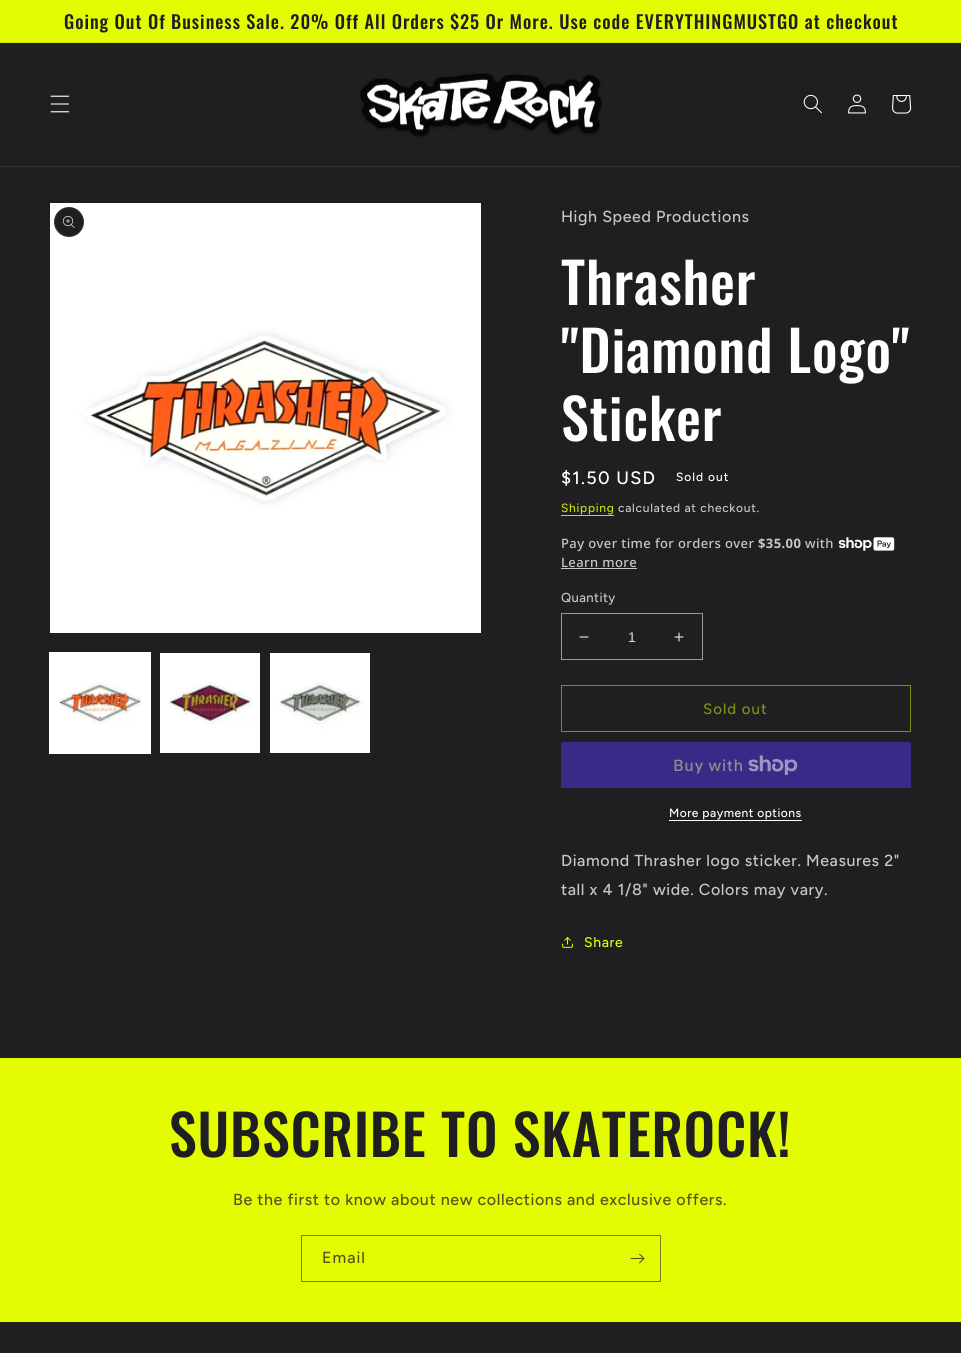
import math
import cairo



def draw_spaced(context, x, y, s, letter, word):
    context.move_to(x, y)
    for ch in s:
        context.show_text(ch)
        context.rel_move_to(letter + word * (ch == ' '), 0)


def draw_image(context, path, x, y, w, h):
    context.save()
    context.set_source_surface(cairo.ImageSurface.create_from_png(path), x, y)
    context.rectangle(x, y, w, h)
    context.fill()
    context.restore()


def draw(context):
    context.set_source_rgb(31 / 255, 31 / 255, 33 / 255)
    context.paint()
    context.set_source_rgb(227 / 255, 252 / 255, 2 / 255)
    context.rectangle(0, 0, 961, 42)
    context.fill()
    context.set_source_rgb(211 / 255, 234 / 255, 4 / 255)
    context.rectangle(0, 42, 961, 1)
    context.fill()
    context.set_source_rgb(49 / 255, 49 / 255, 51 / 255)
    context.rectangle(0, 166, 961, 1)
    context.fill()
    draw_image(context, "images/1.png", 50, 95, 20, 18)
    draw_image(context, "images/2.png", 359, 73, 243, 65)
    draw_image(context, "images/3.png", 803, 94, 19, 20)
    draw_image(context, "images/4.png", 848, 94, 18, 20)
    draw_image(context, "images/5.png", 892, 95, 20, 19)
    draw_image(context, "images/6.png", 50, 203, 431, 430)
    context.set_source_rgb(31 / 255, 31 / 255, 33 / 255)
    context.arc(69, 222, 15, 0, 2 * math.pi)
    context.fill()
    context.arc(69, 222, 14.5, 0, 2 * math.pi)
    context.set_source_rgba(1, 1, 1, 0.1)
    context.set_line_width(1)
    context.stroke()
    draw_image(context, "images/7.png", 63, 216, 12, 12)
    context.rectangle(49.5, 652.5, 101, 101)
    context.set_source_rgb(1, 1, 1)
    context.stroke()
    draw_image(context, "images/8.png", 50, 653, 100, 100)
    draw_image(context, "images/9.png", 160, 653, 100, 100)
    draw_image(context, "images/10.png", 270, 653, 100, 100)
    context.set_source_rgb(198 / 255, 219 / 255, 7 / 255)
    context.rectangle(561, 515, 53, 1)
    context.fill()
    draw_image(context, "images/11.png", 838, 537, 57, 14)
    context.set_source_rgb(199 / 255, 199 / 255, 200 / 255)
    context.rectangle(561, 568, 76, 1)
    context.fill()
    draw_image(context, "images/12.png", 579, 636, 10, 2)
    draw_image(context, "images/13.png", 674, 632, 10, 10)
    context.rectangle(561.5, 613.5, 141, 46)
    context.set_source_rgb(154 / 255, 154 / 255, 155 / 255)
    context.stroke()
    context.rectangle(561.5, 685.5, 349, 46)
    context.set_source_rgb(129 / 255, 142 / 255, 18 / 255)
    context.stroke()
    context.set_source_rgb(58 / 255, 41 / 255, 134 / 255)
    context.rectangle(561, 742, 350, 46)
    context.fill()
    draw_image(context, "images/14.png", 748, 755, 50, 20)
    context.set_source_rgb(1, 1, 1)
    context.rectangle(669, 820, 133, 1)
    context.fill()
    draw_image(context, "images/15.png", 562, 937, 11, 11)
    context.set_source_rgb(227 / 255, 252 / 255, 2 / 255)
    context.rectangle(0, 1058, 961, 264)
    context.fill()
    context.rectangle(301.5, 1235.5, 359, 46)
    context.set_source_rgb(119 / 255, 130 / 255, 19 / 255)
    context.stroke()
    draw_image(context, "images/16.png", 630, 1253, 15, 11)
    context.select_font_face("Oswald Medium")
    context.set_font_size(18.2)
    context.set_source_rgb(31 / 255, 31 / 255, 33 / 255)
    draw_spaced(context, 64, 29, "Going Out Of Business Sale. 20% Off All Orders $25 Or More. Use code EVERYTHINGMUSTGO at checkout", 1, 0)
    context.select_font_face("Figtree Medium")
    context.set_font_size(16)
    context.set_source_rgb(199 / 255, 199 / 255, 200 / 255)
    draw_spaced(context, 561, 222, "High Speed Productions", 0.6, 0)
    context.select_font_face("Oswald Medium")
    context.set_font_size(56)
    context.set_source_rgb(1, 1, 1)
    draw_spaced(context, 561, 305, "Thrasher", 0.8, 0)
    draw_spaced(context, 561, 373, "\"Diamond Logo\"", 0.8, 0)
    draw_spaced(context, 561, 441, "Sticker", 0.8, 0)
    context.select_font_face("Figtree Medium")
    context.set_font_size(18)
    draw_spaced(context, 561, 484, "$1.50 USD", 1.25, 0)
    context.set_font_size(12)
    draw_spaced(context, 676, 481, "Sold out", 1, 0)
    context.set_source_rgb(198 / 255, 219 / 255, 7 / 255)
    draw_spaced(context, 561, 512, "Shipping", 0.7, 0)
    context.set_source_rgb(199 / 255, 199 / 255, 200 / 255)
    draw_spaced(context, 618, 512, "calculated at checkout.", 0.7, 0)
    context.select_font_face("Noto Sans Medium")
    context.set_font_size(13)
    draw_spaced(context, 561, 548, "Pay over time for orders over", 0.4, 0)
    context.select_font_face("Noto Sans", cairo.FontSlant.NORMAL, cairo.FontWeight.BOLD)
    draw_spaced(context, 758, 548, "$35.00", 0.4, 0)
    context.select_font_face("Noto Sans Medium")
    draw_spaced(context, 805, 548, "with", 0.4, 0)
    draw_spaced(context, 561, 567, "Learn more", 0.4, 0)
    context.select_font_face("Figtree Medium")
    draw_spaced(context, 561, 602, "Quantity", 0.4, 0)
    context.select_font_face("Liberation Sans")
    context.set_font_size(14)
    context.set_source_rgb(221 / 255, 221 / 255, 222 / 255)
    context.move_to(628, 642)
    context.show_text("1")
    context.select_font_face("Figtree Medium")
    context.set_font_size(15)
    context.set_source_rgb(129 / 255, 142 / 255, 18 / 255)
    draw_spaced(context, 703, 714, "Sold out", 1, 0)
    context.select_font_face("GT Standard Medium")
    context.set_font_size(16)
    context.set_source_rgb(143 / 255, 143 / 255, 144 / 255)
    draw_spaced(context, 673, 771, "Buy with", 0.6, 0)
    context.select_font_face("Figtree Medium")
    context.set_font_size(12)
    context.set_source_rgb(1, 1, 1)
    draw_spaced(context, 669, 817, "More payment options", 0.5, 0)
    context.set_font_size(16)
    context.set_source_rgb(199 / 255, 199 / 255, 200 / 255)
    draw_spaced(context, 561, 866, "Diamond Thrasher logo sticker. Measures 2\"", 0.6, 0)
    draw_spaced(context, 561, 895, "tall x 4 1/8\" wide. Colors may vary.", 0.6, 0)
    context.set_font_size(14)
    context.set_source_rgb(227 / 255, 252 / 255, 2 / 255)
    draw_spaced(context, 584, 947, "Share", 0.6, 0)
    context.select_font_face("Oswald Medium")
    context.set_font_size(56)
    context.set_source_rgb(31 / 255, 31 / 255, 33 / 255)
    draw_spaced(context, 169, 1157, "SUBSCRIBE TO SKATEROCK!", 0.8, 0)
    context.select_font_face("Figtree Medium")
    context.set_font_size(16)
    context.set_source_rgb(80 / 255, 86 / 255, 25 / 255)
    draw_spaced(context, 233, 1205, "Be the first to know about new collections and exclusive offers.", 0.6, 0)
    draw_spaced(context, 322, 1263, "Email", 1, 0)


surface = cairo.ImageSurface(cairo.Format.RGB24, 961, 1353)
context = cairo.Context(surface)
options = cairo.FontOptions()
options.set_hint_metrics(cairo.HintMetrics.OFF)
options.set_hint_style(cairo.HintStyle.NONE)
context.set_font_options(options)
context.set_miter_limit(4)
draw(context)
surface.write_to_png("out.png")
